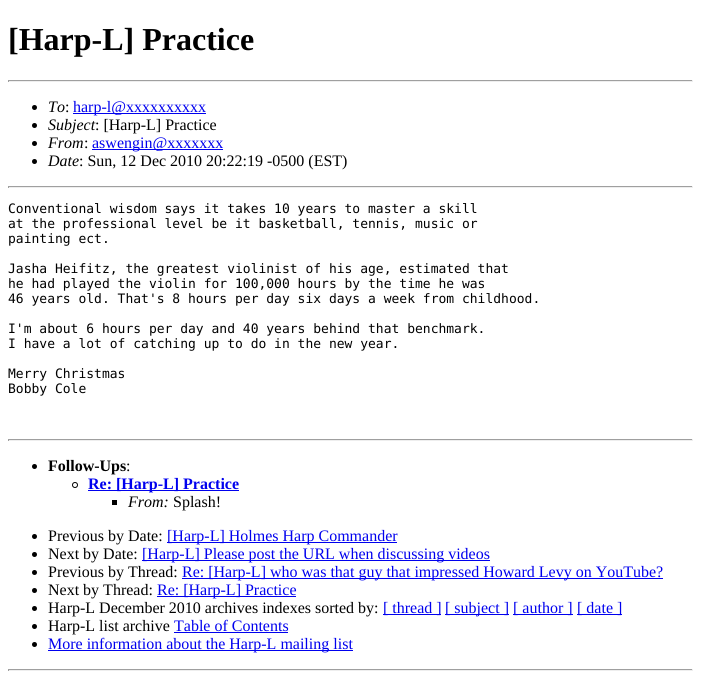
import math
import cairo



def draw(context):
    context.set_source_rgb(1, 1, 1)
    context.paint()
    context.set_source_rgb(159 / 255, 159 / 255, 159 / 255)
    context.rectangle(8, 80, 685, 1)
    context.fill()
    context.set_source_rgb(238 / 255, 238 / 255, 238 / 255)
    context.rectangle(692, 80, 1, 2)
    context.fill()
    context.rectangle(8, 81, 685, 1)
    context.fill()
    context.set_source_rgb(159 / 255, 159 / 255, 159 / 255)
    context.rectangle(8, 80, 1, 2)
    context.fill()
    context.set_source_rgb(0, 0, 0)
    context.arc(34.5, 107.5, 2.5, 0, 2 * math.pi)
    context.fill()
    context.set_source_rgb(0, 0, 238 / 255)
    context.rectangle(73, 113, 133, 1)
    context.fill()
    context.set_source_rgb(0, 0, 0)
    context.arc(34.5, 125.5, 2.5, 0, 2 * math.pi)
    context.fill()
    context.arc(34.5, 143.5, 2.5, 0, 2 * math.pi)
    context.fill()
    context.set_source_rgb(0, 0, 238 / 255)
    context.rectangle(92, 149, 131, 1)
    context.fill()
    context.set_source_rgb(0, 0, 0)
    context.arc(34.5, 161.5, 2.5, 0, 2 * math.pi)
    context.fill()
    context.set_source_rgb(159 / 255, 159 / 255, 159 / 255)
    context.rectangle(8, 186, 685, 1)
    context.fill()
    context.set_source_rgb(238 / 255, 238 / 255, 238 / 255)
    context.rectangle(692, 186, 1, 2)
    context.fill()
    context.rectangle(8, 187, 685, 1)
    context.fill()
    context.set_source_rgb(159 / 255, 159 / 255, 159 / 255)
    context.rectangle(8, 186, 1, 2)
    context.fill()
    context.rectangle(8, 439, 685, 1)
    context.fill()
    context.set_source_rgb(238 / 255, 238 / 255, 238 / 255)
    context.rectangle(692, 439, 1, 2)
    context.fill()
    context.rectangle(8, 440, 685, 1)
    context.fill()
    context.set_source_rgb(159 / 255, 159 / 255, 159 / 255)
    context.rectangle(8, 439, 1, 2)
    context.fill()
    context.set_source_rgb(0, 0, 0)
    context.arc(34.5, 466.5, 2.5, 0, 2 * math.pi)
    context.fill()
    context.arc(75, 485, 2.5, 0, 2 * math.pi)
    context.set_line_width(1)
    context.stroke()
    context.set_source_rgb(0, 0, 238 / 255)
    context.rectangle(88, 490, 151, 1)
    context.fill()
    context.set_source_rgb(0, 0, 0)
    context.rectangle(112, 500, 5, 5)
    context.fill()
    context.arc(34.5, 536.5, 2.5, 0, 2 * math.pi)
    context.fill()
    context.set_source_rgb(0, 0, 238 / 255)
    context.rectangle(167, 542, 230, 1)
    context.fill()
    context.set_source_rgb(0, 0, 0)
    context.arc(34.5, 554.5, 2.5, 0, 2 * math.pi)
    context.fill()
    context.set_source_rgb(0, 0, 238 / 255)
    context.rectangle(142, 560, 348, 1)
    context.fill()
    context.set_source_rgb(0, 0, 0)
    context.arc(34.5, 572.5, 2.5, 0, 2 * math.pi)
    context.fill()
    context.set_source_rgb(0, 0, 238 / 255)
    context.rectangle(182, 578, 481, 1)
    context.fill()
    context.set_source_rgb(0, 0, 0)
    context.arc(34.5, 590.5, 2.5, 0, 2 * math.pi)
    context.fill()
    context.set_source_rgb(0, 0, 238 / 255)
    context.rectangle(157, 596, 139, 1)
    context.fill()
    context.set_source_rgb(0, 0, 0)
    context.arc(34.5, 608.5, 2.5, 0, 2 * math.pi)
    context.fill()
    context.set_source_rgb(0, 0, 238 / 255)
    context.rectangle(383, 614, 58, 1)
    context.fill()
    context.rectangle(445, 614, 64, 1)
    context.fill()
    context.rectangle(513, 614, 60, 1)
    context.fill()
    context.rectangle(577, 614, 45, 1)
    context.fill()
    context.set_source_rgb(0, 0, 0)
    context.arc(34.5, 626.5, 2.5, 0, 2 * math.pi)
    context.fill()
    context.set_source_rgb(0, 0, 238 / 255)
    context.rectangle(174, 632, 114, 1)
    context.fill()
    context.set_source_rgb(0, 0, 0)
    context.arc(34.5, 644.5, 2.5, 0, 2 * math.pi)
    context.fill()
    context.set_source_rgb(0, 0, 238 / 255)
    context.rectangle(48, 650, 305, 1)
    context.fill()
    context.set_source_rgb(159 / 255, 159 / 255, 159 / 255)
    context.rectangle(8, 669, 685, 1)
    context.fill()
    context.set_source_rgb(238 / 255, 238 / 255, 238 / 255)
    context.rectangle(692, 669, 1, 2)
    context.fill()
    context.rectangle(8, 670, 685, 1)
    context.fill()
    context.set_source_rgb(159 / 255, 159 / 255, 159 / 255)
    context.rectangle(8, 669, 1, 2)
    context.fill()
    context.select_font_face("Liberation Serif", cairo.FontSlant.NORMAL, cairo.FontWeight.BOLD)
    context.set_font_size(32)
    context.set_source_rgb(0, 0, 0)
    context.move_to(8, 50)
    context.show_text("[Harp-L] Practice")
    context.select_font_face("Liberation Serif", cairo.FontSlant.ITALIC)
    context.set_font_size(16)
    context.move_to(48, 112)
    context.show_text("To")
    context.select_font_face("Liberation Serif")
    context.move_to(65, 112)
    context.show_text(":")
    context.set_source_rgb(0, 0, 238 / 255)
    context.move_to(73, 112)
    context.show_text("harp-l@xxxxxxxxxx")
    context.select_font_face("Liberation Serif", cairo.FontSlant.ITALIC)
    context.set_source_rgb(0, 0, 0)
    context.move_to(48, 130)
    context.show_text("Subject")
    context.select_font_face("Liberation Serif")
    context.move_to(95, 130)
    context.show_text(": [Harp-L] Practice")
    context.select_font_face("Liberation Serif", cairo.FontSlant.ITALIC)
    context.move_to(48, 148)
    context.show_text("From")
    context.select_font_face("Liberation Serif")
    context.move_to(84, 148)
    context.show_text(":")
    context.set_source_rgb(0, 0, 238 / 255)
    context.move_to(92, 148)
    context.show_text("aswengin@xxxxxxx")
    context.select_font_face("Liberation Serif", cairo.FontSlant.ITALIC)
    context.set_source_rgb(0, 0, 0)
    context.move_to(48, 166)
    context.show_text("Date")
    context.select_font_face("Liberation Serif")
    context.move_to(79, 166)
    context.show_text(": Sun, 12 Dec 2010 20:22:19 -0500 (EST)")
    context.select_font_face("DejaVu Sans Mono")
    context.set_font_size(13)
    context.move_to(8, 213)
    context.show_text("Conventional wisdom says it takes 10 years to master a skill")
    context.move_to(8, 228)
    context.show_text("at the professional level be it basketball, tennis, music or")
    context.move_to(8, 243)
    context.show_text("painting ect.")
    context.move_to(8, 273)
    context.show_text("Jasha Heifitz, the greatest violinist of his age, estimated that")
    context.move_to(8, 288)
    context.show_text("he had played the violin for 100,000 hours by the time he was")
    context.move_to(8, 303)
    context.show_text("46 years old. That's 8 hours per day six days a week from childhood.")
    context.move_to(8, 333)
    context.show_text("I'm about 6 hours per day and 40 years behind that benchmark.")
    context.move_to(8, 348)
    context.show_text("I have a lot of catching up to do in the new year.")
    context.move_to(8, 378)
    context.show_text("Merry Christmas")
    context.move_to(8, 393)
    context.show_text("Bobby Cole")
    context.select_font_face("Liberation Serif", cairo.FontSlant.NORMAL, cairo.FontWeight.BOLD)
    context.set_font_size(16)
    context.move_to(48, 471)
    context.show_text("Follow-Ups")
    context.select_font_face("Liberation Serif")
    context.move_to(126, 471)
    context.show_text(":")
    context.select_font_face("Liberation Serif", cairo.FontSlant.NORMAL, cairo.FontWeight.BOLD)
    context.set_source_rgb(0, 0, 238 / 255)
    context.move_to(88, 489)
    context.show_text("Re: [Harp-L] Practice")
    context.select_font_face("Liberation Serif", cairo.FontSlant.ITALIC)
    context.set_source_rgb(0, 0, 0)
    context.move_to(128, 507)
    context.show_text("From:")
    context.select_font_face("Liberation Serif")
    context.move_to(173, 507)
    context.show_text("Splash!")
    context.move_to(48, 541)
    context.show_text("Previous by Date:")
    context.set_source_rgb(0, 0, 238 / 255)
    context.move_to(167, 541)
    context.show_text("[Harp-L] Holmes Harp Commander")
    context.set_source_rgb(0, 0, 0)
    context.move_to(48, 559)
    context.show_text("Next by Date:")
    context.set_source_rgb(0, 0, 238 / 255)
    context.move_to(142, 559)
    context.show_text("[Harp-L] Please post the URL when discussing videos")
    context.set_source_rgb(0, 0, 0)
    context.move_to(48, 577)
    context.show_text("Previous by Thread:")
    context.set_source_rgb(0, 0, 238 / 255)
    context.move_to(182, 577)
    context.show_text("Re: [Harp-L] who was that guy that impressed Howard Levy on YouTube?")
    context.set_source_rgb(0, 0, 0)
    context.move_to(48, 595)
    context.show_text("Next by Thread:")
    context.set_source_rgb(0, 0, 238 / 255)
    context.move_to(157, 595)
    context.show_text("Re: [Harp-L] Practice")
    context.set_source_rgb(0, 0, 0)
    context.move_to(48, 613)
    context.show_text("Harp-L December 2010 archives indexes sorted by:")
    context.set_source_rgb(0, 0, 238 / 255)
    context.move_to(383, 613)
    context.show_text("[ thread ]")
    context.move_to(445, 613)
    context.show_text("[ subject ]")
    context.move_to(513, 613)
    context.show_text("[ author ]")
    context.move_to(577, 613)
    context.show_text("[ date ]")
    context.set_source_rgb(0, 0, 0)
    context.move_to(48, 631)
    context.show_text("Harp-L list archive")
    context.set_source_rgb(0, 0, 238 / 255)
    context.move_to(174, 631)
    context.show_text("Table of Contents")
    context.move_to(48, 649)
    context.show_text("More information about the Harp-L mailing list")


surface = cairo.ImageSurface(cairo.Format.RGB24, 701, 688)
context = cairo.Context(surface)
options = cairo.FontOptions()
options.set_hint_metrics(cairo.HintMetrics.OFF)
options.set_hint_style(cairo.HintStyle.NONE)
context.set_font_options(options)
context.set_miter_limit(4)
draw(context)
surface.write_to_png("out.png")
